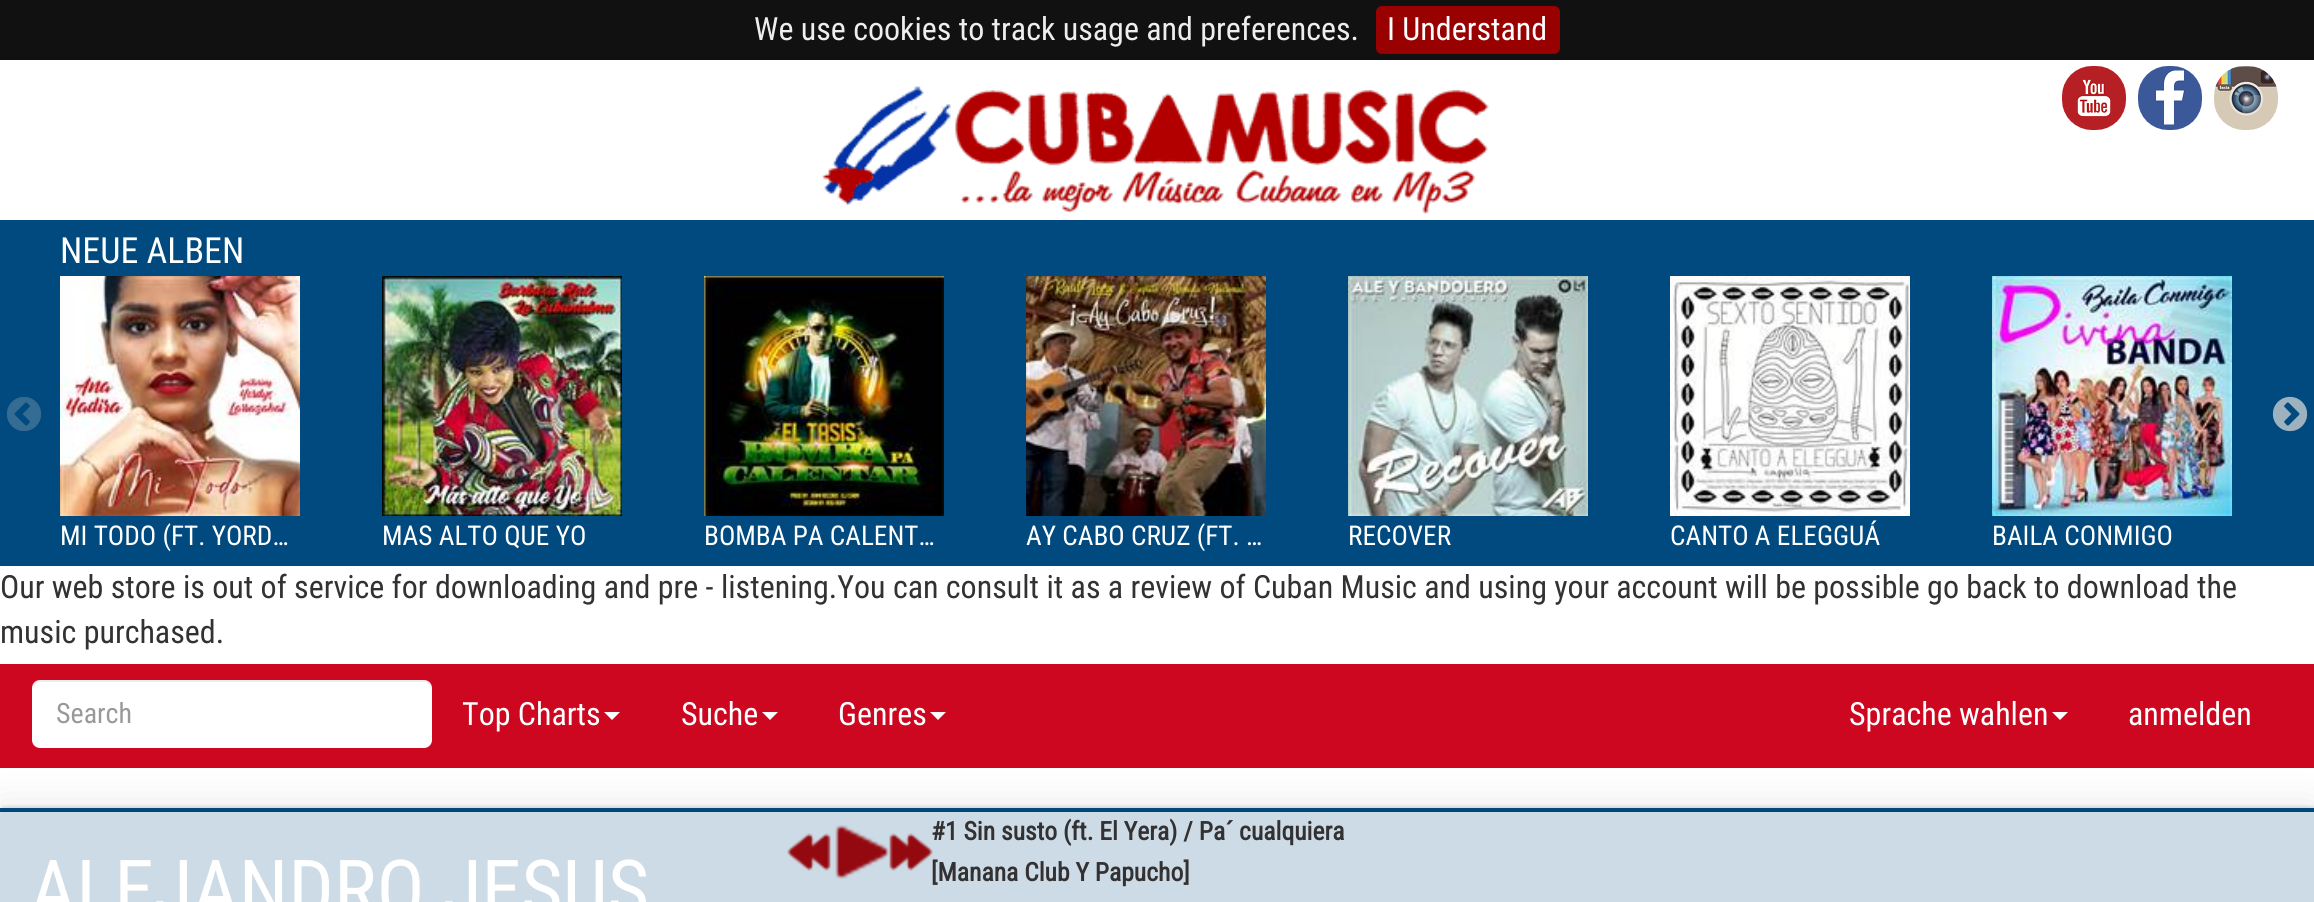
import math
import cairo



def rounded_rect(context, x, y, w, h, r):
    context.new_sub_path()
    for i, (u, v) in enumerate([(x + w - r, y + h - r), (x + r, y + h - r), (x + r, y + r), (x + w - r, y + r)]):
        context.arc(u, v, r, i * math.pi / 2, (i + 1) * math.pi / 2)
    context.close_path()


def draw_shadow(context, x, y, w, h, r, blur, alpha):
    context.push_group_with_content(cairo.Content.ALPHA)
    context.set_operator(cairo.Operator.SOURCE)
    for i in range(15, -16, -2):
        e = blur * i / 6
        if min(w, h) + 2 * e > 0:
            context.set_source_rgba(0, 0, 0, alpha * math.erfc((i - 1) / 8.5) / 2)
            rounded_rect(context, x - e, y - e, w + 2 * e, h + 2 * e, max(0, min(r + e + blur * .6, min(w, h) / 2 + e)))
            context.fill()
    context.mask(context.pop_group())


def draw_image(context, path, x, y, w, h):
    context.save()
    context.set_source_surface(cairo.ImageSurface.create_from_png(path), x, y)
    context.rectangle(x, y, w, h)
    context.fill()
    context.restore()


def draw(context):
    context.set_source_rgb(1, 1, 1)
    context.paint()
    context.set_source_rgb(17 / 255, 17 / 255, 17 / 255)
    context.rectangle(0, 0, 2314, 60)
    context.fill()
    context.set_source_rgb(153 / 255, 0, 0)
    rounded_rect(context, 1376, 6, 184, 48, 6)
    context.fill()
    draw_image(context, "images/1.png", 821, 86, 669, 128)
    draw_image(context, "images/2.png", 2062, 66, 64, 64)
    draw_image(context, "images/3.png", 2138, 66, 64, 64)
    draw_image(context, "images/4.png", 2214, 66, 64, 64)
    context.set_source_rgb(0, 74 / 255, 127 / 255)
    context.rectangle(0, 220, 2314, 346)
    context.fill()
    draw_image(context, "images/5.png", 7, 397, 34, 34)
    draw_image(context, "images/6.png", 2272, 396, 36, 36)
    draw_image(context, "images/7.png", 60, 276, 240, 240)
    draw_image(context, "images/8.png", 382, 276, 240, 240)
    draw_image(context, "images/9.png", 704, 276, 240, 240)
    draw_image(context, "images/10.png", 1026, 276, 240, 240)
    draw_image(context, "images/11.png", 1348, 276, 240, 240)
    draw_image(context, "images/12.png", 1670, 276, 240, 240)
    draw_image(context, "images/13.png", 1992, 276, 240, 240)
    context.set_source_rgb(205 / 255, 7 / 255, 32 / 255)
    context.rectangle(0, 664, 2314, 104)
    context.fill()
    context.set_source_rgb(1, 1, 1)
    rounded_rect(context, 32, 680, 400, 68, 8)
    context.fill()
    context.set_source_rgba(0, 0, 0, 0.07)
    context.new_path()
    context.move_to(40, 682)
    context.line_to(424, 682)
    context.curve_to(428, 682, 432, 686, 432, 690)
    context.line_to(432, 688)
    context.curve_to(432, 684, 428, 680, 424, 680)
    context.line_to(40, 680)
    context.curve_to(36, 680, 32, 684, 32, 688)
    context.line_to(32, 690)
    context.curve_to(32, 686, 36, 682, 40, 682)
    context.close_path()
    context.fill()
    context.set_source_rgb(1, 1, 1)
    context.new_path()
    context.move_to(604, 712)
    context.line_to(620, 712)
    context.line_to(612, 720)
    context.close_path()
    context.fill()
    context.new_path()
    context.move_to(762, 712)
    context.line_to(778, 712)
    context.line_to(770, 720)
    context.close_path()
    context.fill()
    context.new_path()
    context.move_to(930, 712)
    context.line_to(946, 712)
    context.line_to(938, 720)
    context.close_path()
    context.fill()
    context.new_path()
    context.move_to(2052, 712)
    context.line_to(2068, 712)
    context.line_to(2060, 720)
    context.close_path()
    context.fill()
    context.set_source_rgb(0, 0, 0)
    draw_shadow(context, 0, 808, 2314, 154, 0, 20, 0.1)
    draw_shadow(context, 2, 806, 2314, 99, 0, 1, 0.1)
    context.set_source_rgb(0, 74 / 255, 127 / 255)
    context.rectangle(0, 808, 2314, 4)
    context.fill()
    context.set_source_rgb(204 / 255, 219 / 255, 229 / 255)
    context.rectangle(0, 812, 2314, 90)
    context.fill()
    context.save()
    context.rectangle(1, 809, 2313, 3)
    context.clip()
    context.set_source_rgb(0, 0, 0)
    draw_shadow(context, 2, 810, 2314, 90, 0, 1, 0.1)
    context.restore()
    draw_image(context, "images/14.png", 787, 833, 44, 38)
    draw_image(context, "images/15.png", 835, 825, 54, 54)
    context.select_font_face("Roboto Condensed")
    context.set_font_size(32)
    context.set_source_rgb(238 / 255, 238 / 255, 238 / 255)
    context.move_to(754, 40)
    context.show_text("We use cookies to track usage and preferences.")
    context.set_source_rgb(1, 1, 1)
    context.move_to(1387, 40)
    context.show_text("I Understand")
    context.set_font_size(36)
    context.move_to(60, 263)
    context.show_text("NEUE ALBEN")
    context.set_font_size(27.25)
    context.move_to(60, 545)
    context.show_text("MI TODO (FT. YORD…")
    context.move_to(382, 545)
    context.show_text("MAS ALTO QUE YO")
    context.move_to(704, 545)
    context.show_text("BOMBA PA CALENT…")
    context.move_to(1026, 545)
    context.show_text("AY CABO CRUZ (FT. …")
    context.move_to(1348, 545)
    context.show_text("RECOVER")
    context.move_to(1670, 545)
    context.show_text("CANTO A ELEGGUÁ")
    context.move_to(1992, 545)
    context.show_text("BAILA CONMIGO")
    context.set_font_size(32)
    context.set_source_rgb(51 / 255, 49 / 255, 50 / 255)
    context.move_to(0, 598)
    context.show_text("Our web store is out of service for downloading and pre - listening.You can consult it as a review of Cuban Music and using your account will be possible go back to download the")
    context.move_to(0, 643)
    context.show_text("music purchased.")
    context.set_font_size(28)
    context.set_source_rgb(153 / 255, 153 / 255, 153 / 255)
    context.move_to(56, 723)
    context.show_text("Search")
    context.set_font_size(32)
    context.set_source_rgb(1, 1, 1)
    context.move_to(462, 725)
    context.show_text("Top Charts")
    context.move_to(681, 725)
    context.show_text("Suche")
    context.move_to(838, 725)
    context.show_text("Genres")
    context.move_to(1849, 725)
    context.show_text("Sprache wahlen")
    context.move_to(2128, 725)
    context.show_text("anmelden")
    context.set_font_size(80)
    context.move_to(30, 917)
    context.show_text("ALEJANDRO JESUS")
    context.select_font_face("Roboto Condensed", cairo.FontSlant.NORMAL, cairo.FontWeight.BOLD)
    context.set_font_size(25.6)
    context.set_source_rgb(51 / 255, 49 / 255, 50 / 255)
    context.move_to(931, 840)
    context.show_text("#1 Sin susto (ft. El Yera) / Pa´ cualquiera")
    draw_image(context, "images/16.png", 889, 833, 44, 38)
    context.move_to(931, 881)
    context.show_text("[Manana Club Y Papucho]")


surface = cairo.ImageSurface(cairo.Format.RGB24, 2314, 902)
context = cairo.Context(surface)
options = cairo.FontOptions()
options.set_hint_metrics(cairo.HintMetrics.OFF)
options.set_hint_style(cairo.HintStyle.NONE)
context.set_font_options(options)
context.set_miter_limit(4)
draw(context)
surface.write_to_png("out.png")
